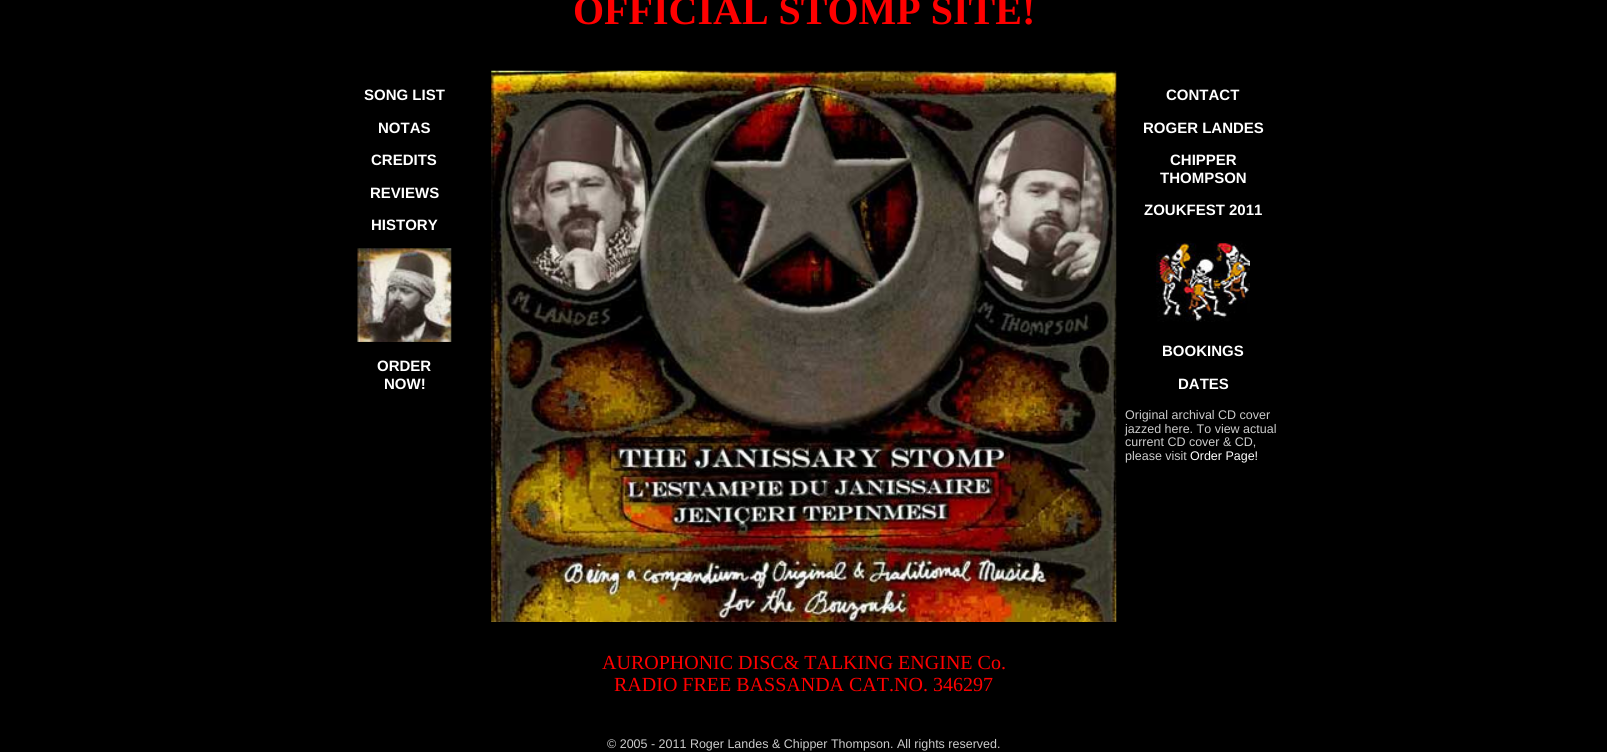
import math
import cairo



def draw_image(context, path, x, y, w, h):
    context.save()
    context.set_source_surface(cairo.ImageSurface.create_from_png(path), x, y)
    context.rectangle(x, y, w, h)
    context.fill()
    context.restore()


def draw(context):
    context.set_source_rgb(0, 0, 0)
    context.paint()
    draw_image(context, "images/1.png", 357, 248, 95, 94)
    draw_image(context, "images/2.png", 491, 70, 626, 552)
    draw_image(context, "images/3.png", 1156, 241, 94, 81)
    context.select_font_face("Liberation Serif", cairo.FontSlant.NORMAL, cairo.FontWeight.BOLD)
    context.set_font_size(40)
    context.set_source_rgb(1, 0, 0)
    context.move_to(573, 24)
    context.show_text("OFFICIAL STOMP SITE!")
    context.select_font_face("Liberation Sans", cairo.FontSlant.NORMAL, cairo.FontWeight.BOLD)
    context.set_font_size(15)
    context.set_source_rgb(1, 1, 1)
    context.move_to(364, 100)
    context.show_text("SONG LIST")
    context.move_to(378, 133)
    context.show_text("NOTAS")
    context.move_to(371, 165)
    context.show_text("CREDITS")
    context.move_to(370, 198)
    context.show_text("REVIEWS")
    context.move_to(371, 230)
    context.show_text("HISTORY")
    context.move_to(377, 371)
    context.show_text("ORDER")
    context.move_to(384, 389)
    context.show_text("NOW!")
    context.move_to(1166, 100)
    context.show_text("CONTACT")
    context.move_to(1143, 133)
    context.show_text("ROGER LANDES")
    context.move_to(1170, 165)
    context.show_text("CHIPPER")
    context.move_to(1160, 183)
    context.show_text("THOMPSON")
    context.move_to(1144, 215)
    context.show_text("ZOUKFEST 2011")
    context.move_to(1162, 356)
    context.show_text("BOOKINGS")
    context.move_to(1178, 389)
    context.show_text("DATES")
    context.select_font_face("Liberation Sans")
    context.set_font_size(12.5)
    context.set_source_rgb(204 / 255, 204 / 255, 204 / 255)
    context.move_to(1125, 419)
    context.show_text("Original archival CD cover")
    context.move_to(1125, 433)
    context.show_text("jazzed here. To view actual")
    context.move_to(1125, 446)
    context.show_text("current CD cover & CD,")
    context.move_to(1125, 460)
    context.show_text("please visit")
    context.set_source_rgb(1, 1, 1)
    context.move_to(1190, 460)
    context.show_text("Order Page!")
    context.select_font_face("Liberation Serif")
    context.set_font_size(20)
    context.set_source_rgb(1, 0, 0)
    context.move_to(602, 669)
    context.show_text("AUROPHONIC DISC& TALKING ENGINE Co.")
    context.move_to(614, 691)
    context.show_text("RADIO FREE BASSANDA CAT.NO. 346297")
    context.select_font_face("Liberation Sans")
    context.set_font_size(12.5)
    context.set_source_rgb(204 / 255, 204 / 255, 204 / 255)
    context.move_to(607, 748)
    context.show_text("© 2005 - 2011 Roger Landes & Chipper Thompson. All rights reserved.")


surface = cairo.ImageSurface(cairo.Format.RGB24, 1607, 752)
context = cairo.Context(surface)
options = cairo.FontOptions()
options.set_hint_metrics(cairo.HintMetrics.OFF)
options.set_hint_style(cairo.HintStyle.NONE)
context.set_font_options(options)
context.set_miter_limit(4)
draw(context)
surface.write_to_png("out.png")
